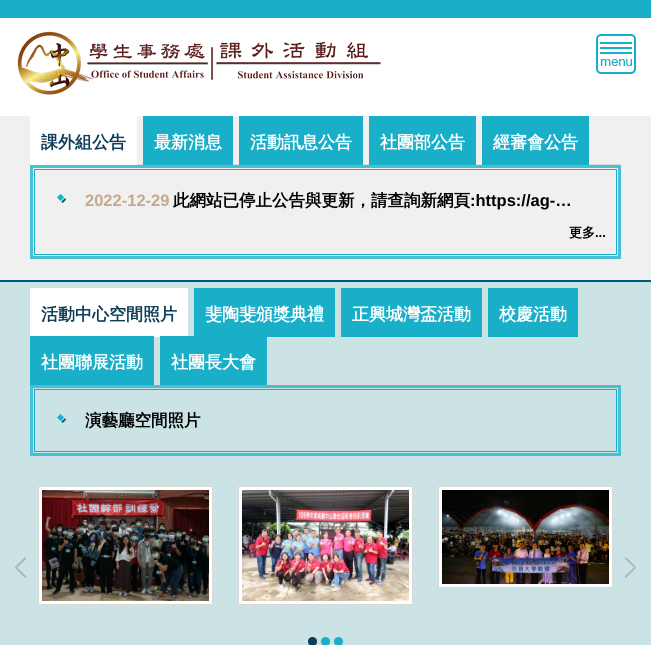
import math
import cairo



def rounded_rect(context, x, y, w, h, r):
    context.new_sub_path()
    for i, (u, v) in enumerate([(x + w - r, y + h - r), (x + r, y + h - r), (x + r, y + r), (x + w - r, y + r)]):
        context.arc(u, v, r, i * math.pi / 2, (i + 1) * math.pi / 2)
    context.close_path()


def draw_image(context, path, x, y, w, h):
    context.save()
    context.set_source_surface(cairo.ImageSurface.create_from_png(path), x, y)
    context.rectangle(x, y, w, h)
    context.fill()
    context.restore()


def draw(context):
    context.set_source_rgb(1, 1, 1)
    context.paint()
    context.set_source_rgb(25 / 255, 175 / 255, 201 / 255)
    context.rectangle(0, 0, 651, 18)
    context.fill()
    draw_image(context, "images/1.png", 17, 31, 364, 64)
    draw_image(context, "images/2.png", 600, 42, 32, 24)
    rounded_rect(context, 597, 35, 38, 38, 4)
    context.stroke()
    context.set_source_rgb(239 / 255, 240 / 255, 239 / 255)
    context.rectangle(0, 116, 651, 164)
    context.fill()
    context.set_source_rgb(221 / 255, 221 / 255, 221 / 255)
    context.rectangle(137, 164, 484, 1)
    context.fill()
    context.set_source_rgb(1, 1, 1)
    context.rectangle(30, 116, 107, 49)
    context.fill()
    context.set_source_rgb(25 / 255, 175 / 255, 201 / 255)
    context.rectangle(143, 116, 90, 49)
    context.fill()
    context.rectangle(239, 116, 124, 49)
    context.fill()
    context.rectangle(369, 116, 107, 49)
    context.fill()
    context.rectangle(482, 116, 107, 49)
    context.fill()
    context.rectangle(31.5, 166.5, 588, 91)
    context.set_source_rgb(71 / 255, 191 / 255, 212 / 255)
    context.set_line_width(3)
    context.stroke()
    context.rectangle(34.5, 169.5, 582, 85)
    context.set_source_rgb(25 / 255, 175 / 255, 201 / 255)
    context.set_line_width(1)
    context.stroke()
    draw_image(context, "images/3.png", 57, 194, 10, 9)
    context.set_source_rgb(204 / 255, 227 / 255, 229 / 255)
    context.rectangle(0, 282, 651, 363)
    context.fill()
    context.set_source_rgb(0, 89 / 255, 130 / 255)
    context.rectangle(0, 280, 651, 2)
    context.fill()
    context.set_source_rgb(221 / 255, 221 / 255, 221 / 255)
    context.rectangle(154, 384, 467, 1)
    context.fill()
    context.set_source_rgb(1, 1, 1)
    context.rectangle(30, 288, 158, 49)
    context.fill()
    context.set_source_rgb(25 / 255, 175 / 255, 201 / 255)
    context.rectangle(194, 288, 141, 49)
    context.fill()
    context.rectangle(341, 288, 141, 49)
    context.fill()
    context.rectangle(488, 288, 90, 49)
    context.fill()
    context.rectangle(30, 336, 124, 49)
    context.fill()
    context.rectangle(160, 336, 107, 49)
    context.fill()
    context.rectangle(31.5, 386.5, 588, 68)
    context.set_source_rgb(71 / 255, 191 / 255, 212 / 255)
    context.set_line_width(3)
    context.stroke()
    context.rectangle(34.5, 389.5, 582, 62)
    context.set_source_rgb(25 / 255, 175 / 255, 201 / 255)
    context.set_line_width(1)
    context.stroke()
    draw_image(context, "images/4.png", 57, 414, 10, 9)
    context.set_source_rgb(1, 1, 1)
    context.rectangle(38.5, 486.5, 174, 118)
    context.fill_preserve()
    context.set_source_rgb(217 / 255, 217 / 255, 217 / 255)
    context.stroke()
    draw_image(context, "images/5.png", 42, 490, 167, 111)
    context.set_source_rgb(1, 1, 1)
    context.rectangle(238.5, 486.5, 174, 118)
    context.fill_preserve()
    context.set_source_rgb(217 / 255, 217 / 255, 217 / 255)
    context.stroke()
    draw_image(context, "images/6.png", 242, 490, 167, 111)
    context.set_source_rgb(1, 1, 1)
    context.rectangle(438.5, 486.5, 174, 101)
    context.fill_preserve()
    context.set_source_rgb(217 / 255, 217 / 255, 217 / 255)
    context.stroke()
    draw_image(context, "images/7.png", 442, 490, 167, 94)
    context.set_source_rgb(166 / 255, 185 / 255, 186 / 255)
    context.new_path()
    context.move_to(25, 578)
    context.line_to(14.5, 567.5)
    context.line_to(17, 567.5)
    context.line_to(26.5, 576.5)
    context.close_path()
    context.fill()
    context.set_source_rgba(51 / 255, 57 / 255, 57 / 255, 0.25)
    context.new_path()
    context.move_to(14.5, 567.5)
    context.line_to(25, 557)
    context.line_to(26.5, 558.5)
    context.line_to(17, 567.5)
    context.close_path()
    context.fill()
    context.set_source_rgb(166 / 255, 185 / 255, 186 / 255)
    context.new_path()
    context.move_to(626, 557)
    context.line_to(636.5, 567.5)
    context.line_to(634, 567.5)
    context.line_to(624.5, 558.5)
    context.close_path()
    context.fill()
    context.new_path()
    context.move_to(636.5, 567.5)
    context.line_to(626, 578)
    context.line_to(624.5, 576.5)
    context.line_to(634, 567.5)
    context.close_path()
    context.fill()
    context.set_source_rgb(13 / 255, 61 / 255, 88 / 255)
    context.arc(312.5, 641.5, 4, 0, 2 * math.pi)
    context.fill_preserve()
    context.stroke()
    context.set_source_rgb(25 / 255, 175 / 255, 201 / 255)
    context.arc(325.5, 641.5, 4, 0, 2 * math.pi)
    context.fill_preserve()
    context.stroke()
    context.arc(338.5, 641.5, 4, 0, 2 * math.pi)
    context.fill_preserve()
    context.stroke()
    context.select_font_face("WenQuanYi Zen Hei", cairo.FontSlant.NORMAL, cairo.FontWeight.BOLD)
    context.set_font_size(17)
    context.set_source_rgb(13 / 255, 61 / 255, 88 / 255)
    context.move_to(41, 148)
    context.show_text("課外組公告")
    context.set_source_rgb(1, 1, 1)
    context.move_to(154, 148)
    context.show_text("最新消息")
    context.move_to(250, 148)
    context.show_text("活動訊息公告")
    context.move_to(380, 148)
    context.show_text("社團部公告")
    context.move_to(493, 148)
    context.show_text("經審會公告")
    context.select_font_face("Liberation Sans", cairo.FontSlant.NORMAL, cairo.FontWeight.BOLD)
    context.set_font_size(16.5)
    context.set_source_rgb(196 / 255, 169 / 255, 140 / 255)
    context.move_to(85, 206)
    context.show_text("2022-12-29")
    context.select_font_face("WenQuanYi Zen Hei", cairo.FontSlant.NORMAL, cairo.FontWeight.BOLD)
    context.set_source_rgb(0, 0, 0)
    context.move_to(173, 206)
    context.show_text("此網站已停止公告與更新，請查詢新網頁")
    context.select_font_face("Liberation Sans", cairo.FontSlant.NORMAL, cairo.FontWeight.BOLD)
    context.move_to(470, 206)
    context.show_text(":https://ag-…")
    context.select_font_face("WenQuanYi Zen Hei", cairo.FontSlant.NORMAL, cairo.FontWeight.BOLD)
    context.set_font_size(13)
    context.move_to(569, 237)
    context.show_text("更多")
    context.select_font_face("Liberation Sans", cairo.FontSlant.NORMAL, cairo.FontWeight.BOLD)
    context.move_to(595, 237)
    context.show_text("...")
    context.select_font_face("WenQuanYi Zen Hei", cairo.FontSlant.NORMAL, cairo.FontWeight.BOLD)
    context.set_font_size(17)
    context.set_source_rgb(13 / 255, 61 / 255, 88 / 255)
    context.move_to(41, 320)
    context.show_text("活動中心空間照片")
    context.set_source_rgb(1, 1, 1)
    context.move_to(205, 320)
    context.show_text("斐陶斐頒獎典禮")
    context.move_to(352, 320)
    context.show_text("正興城灣盃活動")
    context.move_to(499, 320)
    context.show_text("校慶活動")
    context.move_to(41, 368)
    context.show_text("社團聯展活動")
    context.move_to(171, 368)
    context.show_text("社團長大會")
    context.set_font_size(16.5)
    context.set_source_rgb(0, 0, 0)
    context.move_to(85, 426)
    context.show_text("演藝廳空間照片")


surface = cairo.ImageSurface(cairo.Format.RGB24, 651, 645)
context = cairo.Context(surface)
options = cairo.FontOptions()
options.set_hint_metrics(cairo.HintMetrics.OFF)
options.set_hint_style(cairo.HintStyle.NONE)
context.set_font_options(options)
context.set_miter_limit(4)
draw(context)
surface.write_to_png("out.png")
